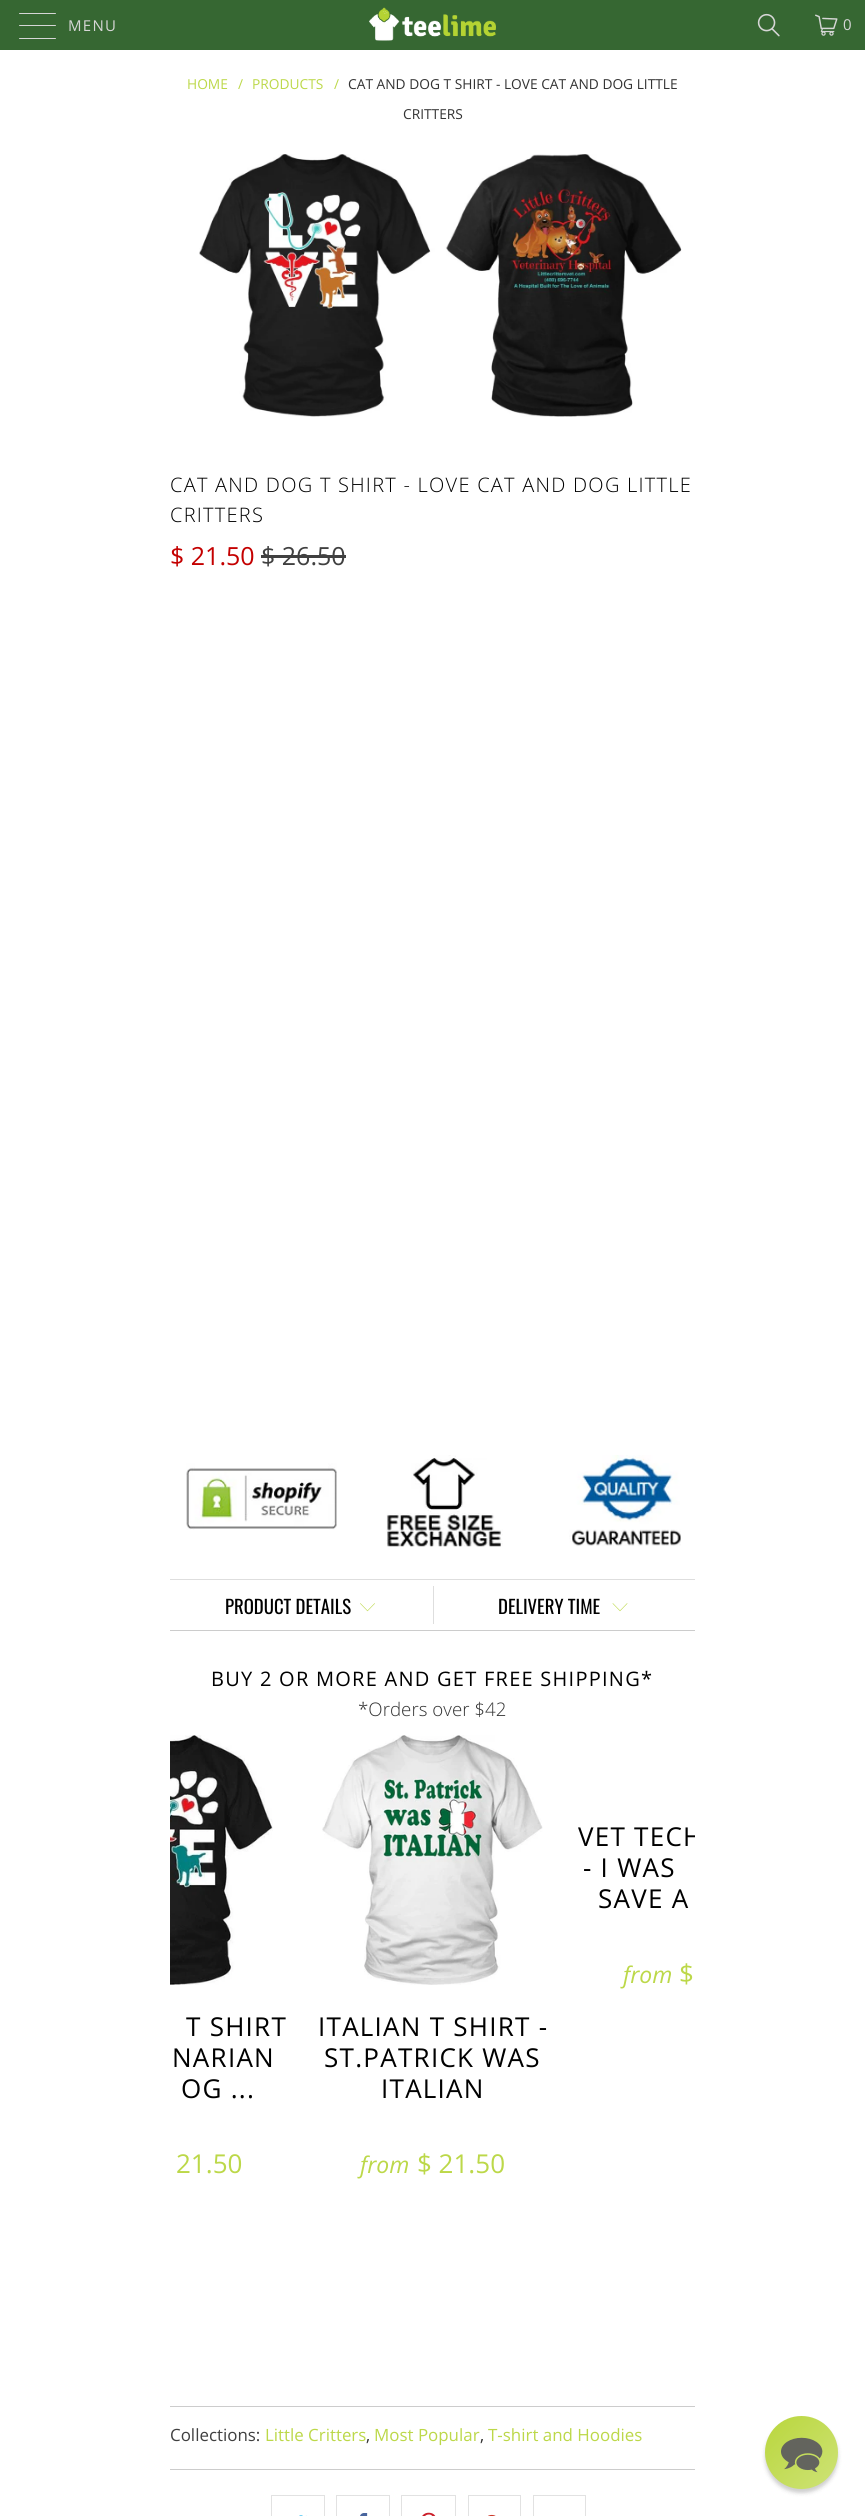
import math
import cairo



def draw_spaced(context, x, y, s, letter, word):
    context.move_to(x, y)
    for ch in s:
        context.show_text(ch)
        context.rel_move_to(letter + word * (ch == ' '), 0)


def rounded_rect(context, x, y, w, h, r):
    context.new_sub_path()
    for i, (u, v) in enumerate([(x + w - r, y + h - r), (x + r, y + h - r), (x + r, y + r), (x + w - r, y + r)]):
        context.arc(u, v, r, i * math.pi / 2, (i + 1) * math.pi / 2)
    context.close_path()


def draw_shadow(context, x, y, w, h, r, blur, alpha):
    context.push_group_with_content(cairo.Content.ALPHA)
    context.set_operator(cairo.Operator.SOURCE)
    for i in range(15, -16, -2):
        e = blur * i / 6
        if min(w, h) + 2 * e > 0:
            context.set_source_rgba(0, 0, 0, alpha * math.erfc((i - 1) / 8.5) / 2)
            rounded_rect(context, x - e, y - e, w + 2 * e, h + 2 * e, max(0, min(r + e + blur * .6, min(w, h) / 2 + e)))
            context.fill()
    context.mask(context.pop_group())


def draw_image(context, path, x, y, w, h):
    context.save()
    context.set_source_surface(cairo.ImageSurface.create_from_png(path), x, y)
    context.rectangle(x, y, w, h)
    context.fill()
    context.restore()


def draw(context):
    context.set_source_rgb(1, 1, 1)
    context.paint()
    context.set_source_rgb(54 / 255, 103 / 255, 50 / 255)
    context.rectangle(0, 0, 865, 50)
    context.fill()
    context.set_source_rgb(214 / 255, 214 / 255, 214 / 255)
    rounded_rect(context, 19, 13, 37, 1, 0.5)
    context.fill()
    rounded_rect(context, 19, 25, 37, 1, 0.5)
    context.fill()
    rounded_rect(context, 19, 38, 37, 1, 0.5)
    context.fill()
    draw_image(context, "images/1.png", 369, 7, 127, 34)
    draw_image(context, "images/2.png", 757, 13, 23, 24)
    draw_image(context, "images/3.png", 815, 14, 23, 22)
    draw_image(context, "images/4.png", 199, 154, 483, 263)
    context.set_source_rgb(64 / 255, 64 / 255, 64 / 255)
    context.rectangle(261, 555, 85, 3)
    context.fill()
    draw_image(context, "images/5.png", 186, 1455, 495, 92)
    context.set_source_rgb(222 / 255, 222 / 255, 222 / 255)
    context.rectangle(170, 1579, 525, 1)
    context.fill()
    context.set_source_rgb(204 / 255, 204 / 255, 204 / 255)
    context.rectangle(170, 1630, 525, 1)
    context.fill()
    draw_image(context, "images/6.png", 360, 1603, 15, 9)
    context.set_source_rgb(222 / 255, 222 / 255, 222 / 255)
    context.rectangle(433, 1586, 1, 38)
    context.fill()
    draw_image(context, "images/7.png", 612, 1603, 16, 9)
    draw_image(context, "images/8.png", 170, 1735, 103, 250)
    draw_image(context, "images/9.png", 322, 1735, 221, 250)
    context.set_source_rgb(204 / 255, 204 / 255, 204 / 255)
    context.rectangle(170, 2406, 525, 1)
    context.fill()
    context.rectangle(170, 2469, 525, 1)
    context.fill()
    context.rectangle(271.5, 2495.5, 53, 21)
    context.set_source_rgb(226 / 255, 226 / 255, 226 / 255)
    context.set_line_width(1)
    context.stroke()
    draw_image(context, "images/10.png", 299, 2515, 8, 1)
    context.rectangle(336.5, 2495.5, 53, 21)
    context.stroke()
    draw_image(context, "images/11.png", 360, 2513, 8, 3)
    context.rectangle(401.5, 2495.5, 54, 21)
    context.stroke()
    draw_image(context, "images/12.png", 422, 2512, 14, 4)
    context.rectangle(468.5, 2495.5, 52, 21)
    context.stroke()
    draw_image(context, "images/13.png", 488, 2514, 8, 2)
    context.rectangle(533.5, 2495.5, 52, 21)
    context.stroke()
    context.set_source_rgb(13 / 255, 13 / 255, 13 / 255)
    draw_shadow(context, 765, 2420, 73, 73, 36.5, 2, 0.2)
    gradient = cairo.LinearGradient(765, 2416, 838, 2489)
    gradient.add_color_stop_rgba(0, 185 / 255, 214 / 255, 60 / 255, 1)
    gradient.add_color_stop_rgba(1, 206 / 255, 227 / 255, 119 / 255, 1)
    context.set_source(gradient)
    context.arc(801.5, 2452.5, 36.5, 0, 2 * math.pi)
    context.fill()
    draw_image(context, "images/14.png", 781, 2437, 42, 36)
    context.select_font_face("Open Sans")
    context.set_font_size(15)
    context.set_source_rgb(214 / 255, 214 / 255, 214 / 255)
    draw_spaced(context, 68, 31, "MENU", 1.25, 0)
    draw_spaced(context, 843, 30, "0", 1.25, 0)
    context.set_font_size(13.75)
    context.set_source_rgb(188 / 255, 216 / 255, 73 / 255)
    context.move_to(187, 89)
    context.show_text("HOME")
    context.move_to(238, 89)
    context.show_text("/")
    context.move_to(252, 89)
    context.show_text("PRODUCTS")
    context.move_to(334, 89)
    context.show_text("/")
    context.set_source_rgb(51 / 255, 51 / 255, 51 / 255)
    context.move_to(348, 89)
    context.show_text("CAT AND DOG T SHIRT - LOVE CAT AND DOG LITTLE")
    context.move_to(403, 119)
    context.show_text("CRITTERS")
    context.select_font_face("Open Sans Light")
    context.set_font_size(20)
    context.set_source_rgb(0, 0, 0)
    draw_spaced(context, 170, 492, "CAT AND DOG T SHIRT - LOVE CAT AND DOG LITTLE", 1.25, 0)
    draw_spaced(context, 170, 522, "CRITTERS", 1.25, 0)
    context.select_font_face("Open Sans")
    context.set_font_size(25)
    context.set_source_rgb(196 / 255, 0, 0)
    context.move_to(170, 565)
    context.show_text("$ 21.50")
    context.set_source_rgb(64 / 255, 64 / 255, 64 / 255)
    context.move_to(261, 565)
    context.show_text("$ 26.50")
    context.select_font_face("Oswald")
    context.set_font_size(18.75)
    context.set_source_rgb(0, 0, 0)
    context.move_to(225, 1614)
    context.show_text("PRODUCT DETAILS")
    context.move_to(498, 1614)
    context.show_text("DELIVERY TIME")
    context.select_font_face("Open Sans")
    context.set_font_size(20)
    draw_spaced(context, 211, 1686, "BUY 2 OR MORE AND GET FREE SHIPPING*", 1.25, 0)
    context.select_font_face("Open Sans Light")
    context.set_font_size(18.75)
    context.set_source_rgb(51 / 255, 51 / 255, 51 / 255)
    context.move_to(358, 1716)
    context.show_text("*Orders over $42")
    context.save()
    context.rectangle(170, 1735, 525, 646)
    context.clip()
    context.select_font_face("Open Sans")
    context.set_font_size(26)
    context.set_source_rgb(0, 0, 0)
    draw_spaced(context, 578, 1846, "VET TECH", 1.25, 0)
    context.restore()
    context.select_font_face("Open Sans")
    context.set_font_size(26)
    context.set_source_rgb(0, 0, 0)
    draw_spaced(context, 583, 1877, "- I WAS", 1.25, 0)
    draw_spaced(context, 598, 1908, "SAVE A", 1.25, 0)
    context.select_font_face("Open Sans", cairo.FontSlant.ITALIC)
    context.set_font_size(23)
    context.set_source_rgb(188 / 255, 216 / 255, 73 / 255)
    context.move_to(623, 1983)
    context.show_text("from")
    context.select_font_face("Open Sans")
    context.set_font_size(26)
    context.move_to(679, 1983)
    context.show_text("$")
    context.set_source_rgb(0, 0, 0)
    draw_spaced(context, 186, 2036, "T SHIRT", 1.25, 0)
    draw_spaced(context, 172, 2067, "NARIAN", 1.25, 0)
    draw_spaced(context, 181, 2098, "OG ...", 1.25, 0)
    context.set_source_rgb(188 / 255, 216 / 255, 73 / 255)
    context.move_to(176, 2173)
    context.show_text("21.50")
    context.set_source_rgb(0, 0, 0)
    draw_spaced(context, 318, 2036, "ITALIAN T SHIRT -", 1.25, 0)
    draw_spaced(context, 324, 2067, "ST.PATRICK WAS", 1.25, 0)
    draw_spaced(context, 381, 2098, "ITALIAN", 1.25, 0)
    context.select_font_face("Open Sans", cairo.FontSlant.ITALIC)
    context.set_font_size(23)
    context.set_source_rgb(188 / 255, 216 / 255, 73 / 255)
    context.move_to(360, 2173)
    context.show_text("from")
    context.select_font_face("Open Sans")
    context.set_font_size(26)
    context.move_to(417, 2173)
    context.show_text("$ 21.50")
    context.set_font_size(16.9)
    context.set_source_rgb(64 / 255, 64 / 255, 64 / 255)
    context.move_to(170, 2441)
    context.show_text("Collections:")
    context.set_source_rgb(188 / 255, 216 / 255, 73 / 255)
    context.move_to(265, 2441)
    context.show_text("Little Critters")
    context.set_source_rgb(51 / 255, 51 / 255, 51 / 255)
    context.move_to(366, 2441)
    context.show_text(",")
    context.set_source_rgb(188 / 255, 216 / 255, 73 / 255)
    context.move_to(374, 2441)
    context.show_text("Most Popular")
    context.set_source_rgb(51 / 255, 51 / 255, 51 / 255)
    context.move_to(480, 2441)
    context.show_text(",")
    context.set_source_rgb(188 / 255, 216 / 255, 73 / 255)
    context.move_to(488, 2441)
    context.show_text("T-shirt and Hoodies")


surface = cairo.ImageSurface(cairo.Format.RGB24, 865, 2516)
context = cairo.Context(surface)
options = cairo.FontOptions()
options.set_hint_metrics(cairo.HintMetrics.OFF)
options.set_hint_style(cairo.HintStyle.NONE)
context.set_font_options(options)
context.set_miter_limit(4)
draw(context)
surface.write_to_png("out.png")
